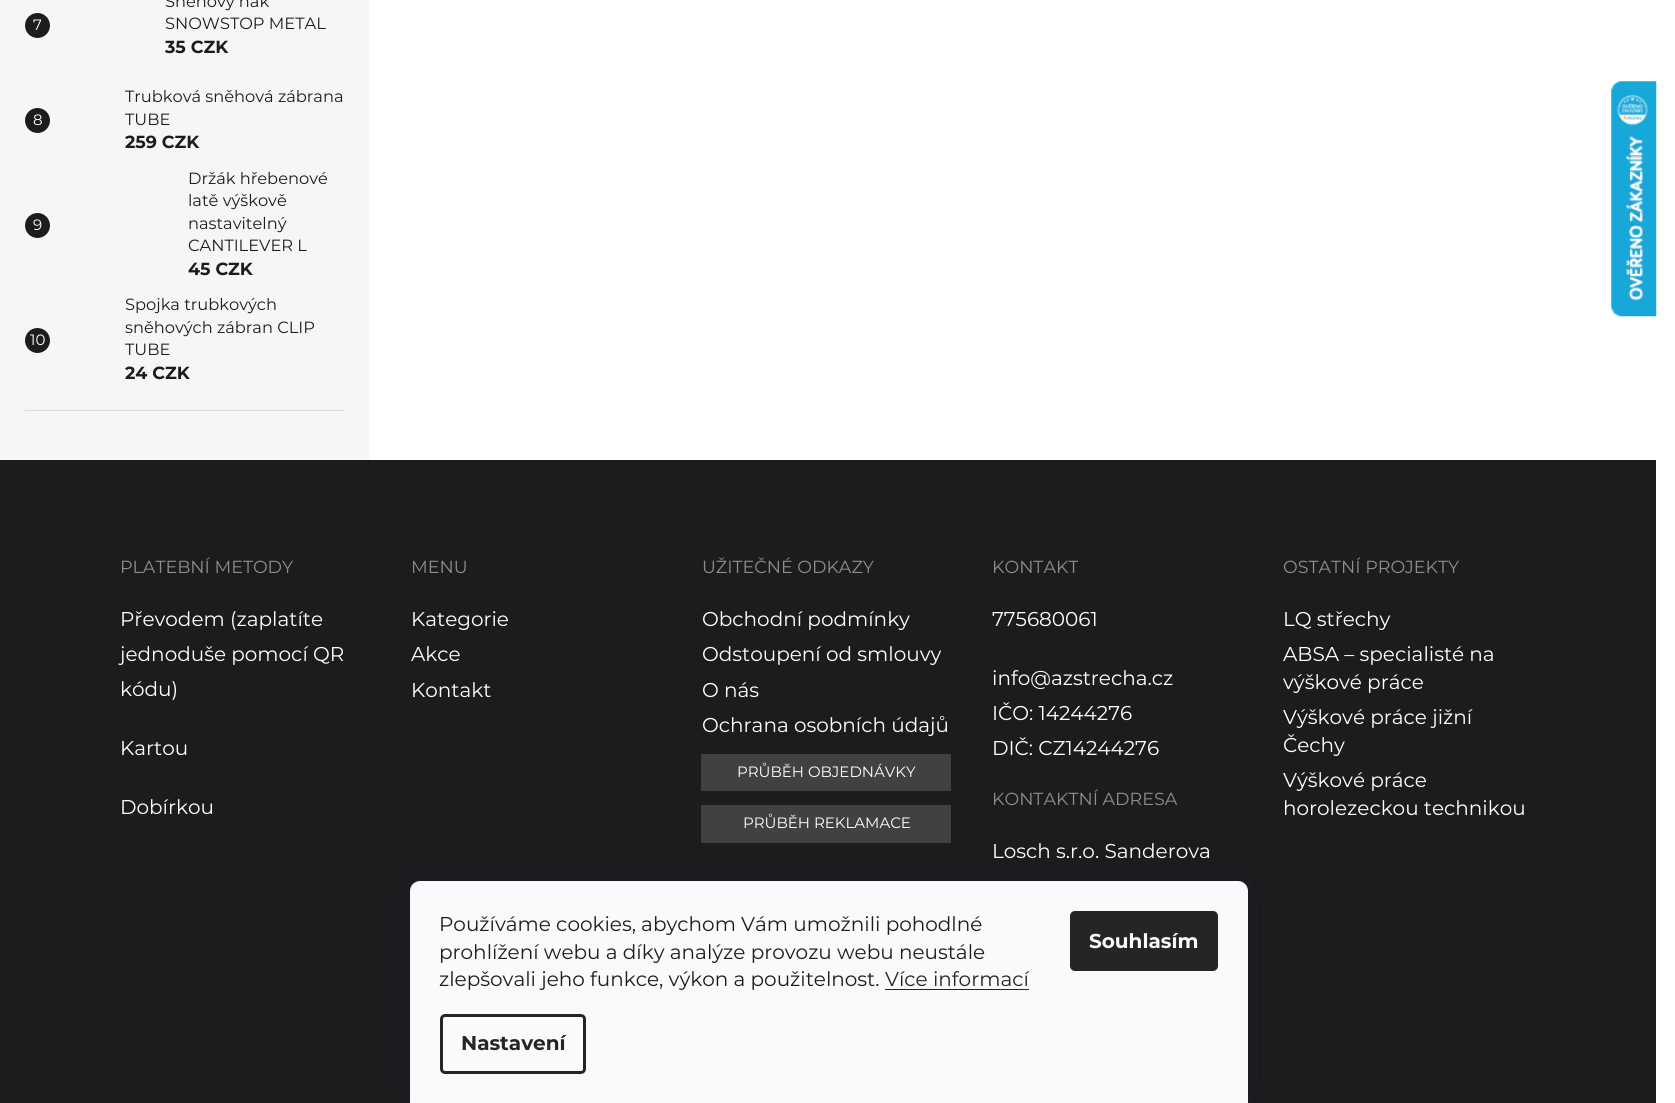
import math
import cairo



def rounded_rect(context, x, y, w, h, r):
    context.new_sub_path()
    for i, (u, v) in enumerate([(x + w - r, y + h - r), (x + r, y + h - r), (x + r, y + r), (x + w - r, y + r)]):
        context.arc(u, v, r, i * math.pi / 2, (i + 1) * math.pi / 2)
    context.close_path()


def draw_shadow(context, x, y, w, h, r, blur, alpha):
    context.push_group_with_content(cairo.Content.ALPHA)
    context.set_operator(cairo.Operator.SOURCE)
    for i in range(15, -16, -2):
        e = blur * i / 6
        if min(w, h) + 2 * e > 0:
            context.set_source_rgba(0, 0, 0, alpha * math.erfc((i - 1) / 8.5) / 2)
            rounded_rect(context, x - e, y - e, w + 2 * e, h + 2 * e, max(0, min(r + e + blur * .6, min(w, h) / 2 + e)))
            context.fill()
    context.mask(context.pop_group())


def draw_image(context, path, x, y, w, h):
    context.save()
    context.set_source_surface(cairo.ImageSurface.create_from_png(path), x, y)
    context.rectangle(x, y, w, h)
    context.fill()
    context.restore()


def draw(context):
    context.set_source_rgb(1, 1, 1)
    context.paint()
    context.set_source_rgb(246 / 255, 246 / 255, 246 / 255)
    context.rectangle(0, 0, 369, 460)
    context.fill()
    context.set_source_rgb(218 / 255, 218 / 255, 218 / 255)
    context.rectangle(25, 410, 319, 1)
    context.fill()
    context.set_source_rgb(28 / 255, 28 / 255, 28 / 255)
    context.arc(37.5, 25.5, 12.5, 0, 2 * math.pi)
    context.fill()
    context.arc(37.5, 120.5, 12.5, 0, 2 * math.pi)
    context.fill()
    context.arc(37.5, 225.5, 12.5, 0, 2 * math.pi)
    context.fill()
    context.arc(37.5, 340.5, 12.5, 0, 2 * math.pi)
    context.fill()
    context.rectangle(0, 460, 1656, 643)
    context.fill()
    context.set_source_rgb(65 / 255, 65 / 255, 65 / 255)
    context.rectangle(701, 754, 250, 37)
    context.fill()
    context.rectangle(701, 805, 250, 38)
    context.fill()
    draw_image(context, "images/1.png", 1611, 81, 46, 236)
    context.set_source_rgb(27 / 255, 25 / 255, 57 / 255)
    draw_shadow(context, 410, 881, 838, 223, 10, 19, 0.5)
    context.set_source_rgb(248 / 255, 250 / 255, 251 / 255)
    context.new_path()
    context.move_to(420, 881)
    context.line_to(1238, 881)
    context.curve_to(1243.5, 881, 1248, 885.5, 1248, 891)
    context.line_to(1248, 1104)
    context.line_to(410, 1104)
    context.line_to(410, 891)
    context.curve_to(410, 885.5, 414.5, 881, 420, 881)
    context.close_path()
    context.fill()
    context.set_source_rgb(37 / 255, 37 / 255, 37 / 255)
    context.rectangle(885, 989, 144, 1)
    context.fill()
    rounded_rect(context, 441.5, 1015.5, 143, 57, 3.5)
    context.set_line_width(3)
    context.stroke()
    rounded_rect(context, 1070, 911, 148, 60, 5)
    context.fill()
    context.select_font_face("Montserrat")
    context.set_font_size(15)
    context.set_source_rgb(1, 1, 1)
    context.move_to(33, 30)
    context.show_text("7")
    context.set_font_size(16.25)
    context.set_source_rgb(28 / 255, 28 / 255, 28 / 255)
    context.move_to(165, 7)
    context.show_text("Sněhový hák")
    context.move_to(165, 29)
    context.show_text("SNOWSTOP METAL")
    context.select_font_face("Montserrat", cairo.FontSlant.NORMAL, cairo.FontWeight.BOLD)
    context.set_font_size(17.5)
    context.move_to(165, 53)
    context.show_text("35 CZK")
    context.select_font_face("Montserrat")
    context.set_font_size(15)
    context.set_source_rgb(1, 1, 1)
    context.move_to(33, 125)
    context.show_text("8")
    context.set_font_size(16.25)
    context.set_source_rgb(28 / 255, 28 / 255, 28 / 255)
    context.move_to(125, 102)
    context.show_text("Trubková sněhová zábrana")
    context.move_to(125, 125)
    context.show_text("TUBE")
    context.select_font_face("Montserrat", cairo.FontSlant.NORMAL, cairo.FontWeight.BOLD)
    context.set_font_size(17.5)
    context.move_to(125, 148)
    context.show_text("259 CZK")
    context.select_font_face("Montserrat")
    context.set_font_size(15)
    context.set_source_rgb(1, 1, 1)
    context.move_to(33, 230)
    context.show_text("9")
    context.set_font_size(16.25)
    context.set_source_rgb(28 / 255, 28 / 255, 28 / 255)
    context.move_to(188, 184)
    context.show_text("Držák hřebenové")
    context.move_to(188, 206)
    context.show_text("latě výškově")
    context.move_to(188, 229)
    context.show_text("nastavitelný")
    context.move_to(188, 251)
    context.show_text("CANTILEVER L")
    context.select_font_face("Montserrat", cairo.FontSlant.NORMAL, cairo.FontWeight.BOLD)
    context.set_font_size(17.5)
    context.move_to(188, 275)
    context.show_text("45 CZK")
    context.select_font_face("Montserrat")
    context.set_font_size(15)
    context.set_source_rgb(1, 1, 1)
    context.move_to(30, 345)
    context.show_text("10")
    context.set_font_size(16.25)
    context.set_source_rgb(28 / 255, 28 / 255, 28 / 255)
    context.move_to(125, 310)
    context.show_text("Spojka trubkových")
    context.move_to(125, 333)
    context.show_text("sněhových zábran CLIP")
    context.move_to(125, 355)
    context.show_text("TUBE")
    context.select_font_face("Montserrat", cairo.FontSlant.NORMAL, cairo.FontWeight.BOLD)
    context.set_font_size(17.5)
    context.move_to(125, 379)
    context.show_text("24 CZK")
    context.select_font_face("Montserrat")
    context.set_source_rgb(142 / 255, 142 / 255, 142 / 255)
    context.move_to(120, 573)
    context.show_text("PLATEBNÍ METODY")
    context.set_font_size(20)
    context.set_source_rgb(1, 1, 1)
    context.move_to(120, 626)
    context.show_text("Převodem (zaplatíte")
    context.move_to(120, 661)
    context.show_text("jednoduše pomocí QR")
    context.move_to(120, 696)
    context.show_text("kódu)")
    context.move_to(120, 755)
    context.show_text("Kartou")
    context.move_to(120, 814)
    context.show_text("Dobírkou")
    context.set_font_size(17.5)
    context.set_source_rgb(142 / 255, 142 / 255, 142 / 255)
    context.move_to(411, 573)
    context.show_text("MENU")
    context.set_font_size(20)
    context.set_source_rgb(1, 1, 1)
    context.move_to(411, 626)
    context.show_text("Kategorie")
    context.move_to(411, 661)
    context.show_text("Akce")
    context.move_to(411, 697)
    context.show_text("Kontakt")
    context.set_font_size(17.5)
    context.set_source_rgb(142 / 255, 142 / 255, 142 / 255)
    context.move_to(702, 573)
    context.show_text("UŽITEČNÉ ODKAZY")
    context.set_font_size(20)
    context.set_source_rgb(1, 1, 1)
    context.move_to(702, 626)
    context.show_text("Obchodní podmínky")
    context.move_to(702, 661)
    context.show_text("Odstoupení od smlouvy")
    context.move_to(702, 697)
    context.show_text("O nás")
    context.move_to(702, 732)
    context.show_text("Ochrana osobních údajů")
    context.set_font_size(15)
    context.move_to(737, 777)
    context.show_text("PRŮBĚH OBJEDNÁVKY")
    context.move_to(743, 828)
    context.show_text("PRŮBĚH REKLAMACE")
    context.set_font_size(17.5)
    context.set_source_rgb(142 / 255, 142 / 255, 142 / 255)
    context.move_to(992, 573)
    context.show_text("KONTAKT")
    context.set_font_size(20)
    context.set_source_rgb(1, 1, 1)
    context.move_to(992, 626)
    context.show_text("775680061")
    context.move_to(992, 685)
    context.show_text("info@azstrecha.cz")
    context.move_to(992, 720)
    context.show_text("IČO: 14244276")
    context.move_to(992, 755)
    context.show_text("DIČ: CZ14244276")
    context.set_font_size(17.5)
    context.set_source_rgb(142 / 255, 142 / 255, 142 / 255)
    context.move_to(992, 805)
    context.show_text("KONTAKTNÍ ADRESA")
    context.set_font_size(20)
    context.set_source_rgb(1, 1, 1)
    context.move_to(992, 858)
    context.show_text("Losch s.r.o. Sanderova")
    context.set_font_size(17.5)
    context.set_source_rgb(142 / 255, 142 / 255, 142 / 255)
    context.move_to(1283, 573)
    context.show_text("OSTATNÍ PROJEKTY")
    context.set_font_size(20)
    context.set_source_rgb(1, 1, 1)
    context.move_to(1283, 626)
    context.show_text("LQ střechy")
    context.move_to(1283, 661)
    context.show_text("ABSA – specialisté na")
    context.move_to(1283, 689)
    context.show_text("výškové práce")
    context.move_to(1283, 724)
    context.show_text("Výškové práce jižní")
    context.move_to(1283, 752)
    context.show_text("Čechy")
    context.move_to(1283, 787)
    context.show_text("Výškové práce")
    context.move_to(1283, 815)
    context.show_text("horolezeckou technikou")
    context.set_source_rgb(28 / 255, 28 / 255, 28 / 255)
    context.move_to(439, 931)
    context.show_text("Používáme cookies, abychom Vám umožnili pohodlné")
    context.move_to(439, 959)
    context.show_text("prohlížení webu a díky analýze provozu webu neustále")
    context.move_to(439, 986)
    context.show_text("zlepšovali jeho funkce, výkon a použitelnost.")
    context.set_source_rgb(37 / 255, 37 / 255, 37 / 255)
    context.move_to(885, 986)
    context.show_text("Více informací")
    context.select_font_face("Montserrat", cairo.FontSlant.NORMAL, cairo.FontWeight.BOLD)
    context.move_to(461, 1050)
    context.show_text("Nastavení")
    context.set_source_rgb(248 / 255, 250 / 255, 251 / 255)
    context.move_to(1089, 948)
    context.show_text("Souhlasím")


surface = cairo.ImageSurface(cairo.Format.RGB24, 1675, 1103)
context = cairo.Context(surface)
options = cairo.FontOptions()
options.set_hint_metrics(cairo.HintMetrics.OFF)
options.set_hint_style(cairo.HintStyle.NONE)
context.set_font_options(options)
context.set_miter_limit(4)
draw(context)
surface.write_to_png("out.png")
